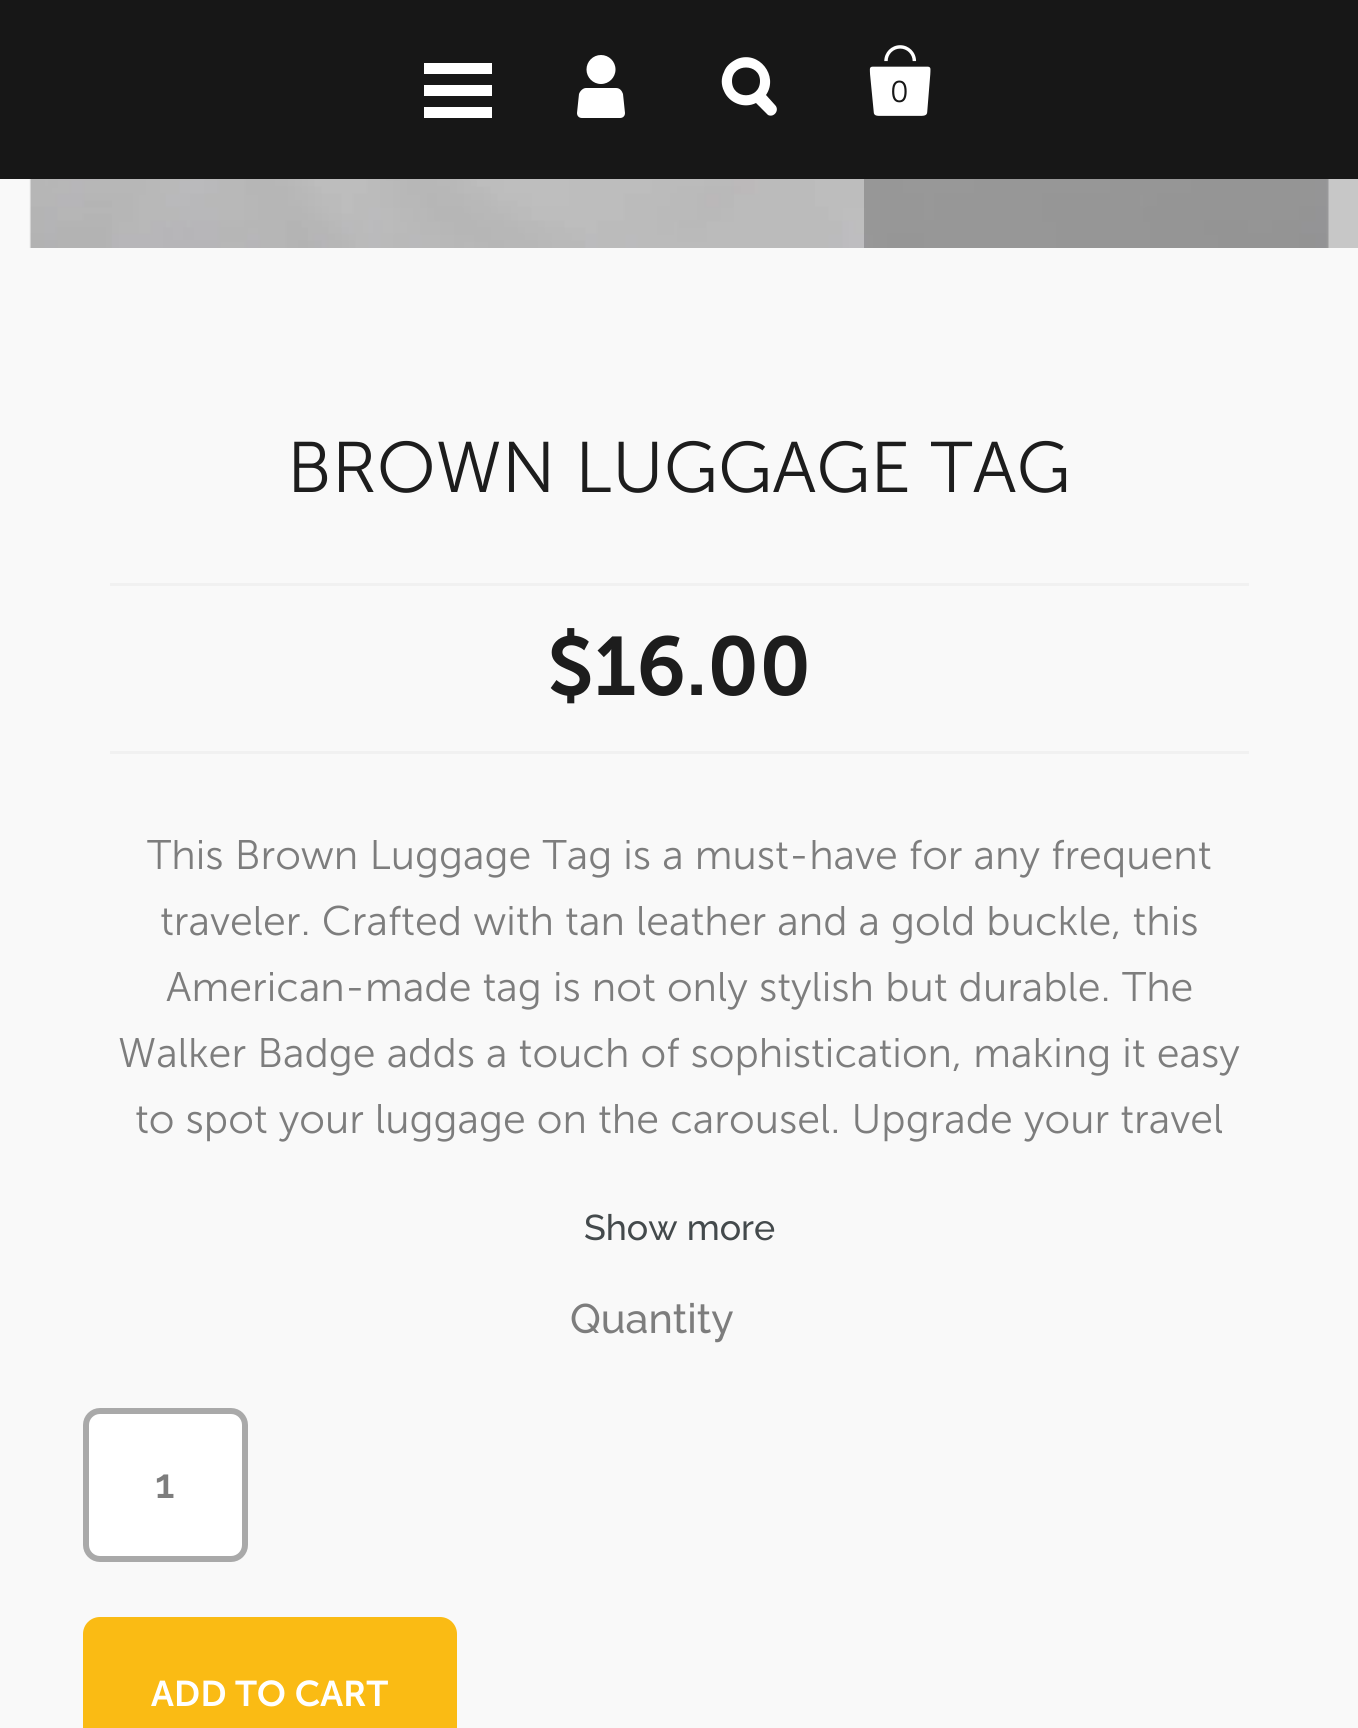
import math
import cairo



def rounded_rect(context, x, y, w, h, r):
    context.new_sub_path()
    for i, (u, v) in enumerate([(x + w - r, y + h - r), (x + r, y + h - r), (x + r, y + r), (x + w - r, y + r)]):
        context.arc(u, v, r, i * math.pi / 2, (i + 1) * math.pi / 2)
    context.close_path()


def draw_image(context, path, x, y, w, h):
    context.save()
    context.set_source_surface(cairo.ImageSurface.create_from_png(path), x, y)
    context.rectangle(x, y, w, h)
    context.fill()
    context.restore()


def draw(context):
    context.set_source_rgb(249 / 255, 249 / 255, 249 / 255)
    context.paint()
    context.set_source_rgb(23 / 255, 23 / 255, 23 / 255)
    context.rectangle(0, 0, 1358, 179)
    context.fill()
    context.set_source_rgb(1, 1, 1)
    context.rectangle(424, 63, 68, 11)
    context.fill()
    context.rectangle(424, 85, 68, 11)
    context.fill()
    context.rectangle(424, 107, 68, 11)
    context.fill()
    context.new_path()
    context.move_to(625, 113)
    context.line_to(623, 94)
    context.curve_to(622, 91, 620, 88, 616, 88)
    context.line_to(586, 88)
    context.curve_to(583, 88, 580, 91, 579, 94)
    context.line_to(577, 113)
    context.curve_to(577, 116, 579, 118, 582, 118)
    context.line_to(620, 118)
    context.curve_to(623, 118, 625, 116, 625, 113)
    context.close_path()
    context.fill()
    context.arc(601, 69.5, 14.5, 0, 2 * math.pi)
    context.fill()
    context.new_path()
    context.move_to(775, 105)
    context.line_to(766, 95)
    context.curve_to(779, 76, 759, 50, 737, 59)
    context.curve_to(731, 62, 726, 66, 724, 72)
    context.curve_to(721, 78, 721, 85, 724, 91)
    context.curve_to(729, 103, 744, 109, 756, 103)
    context.line_to(768, 115)
    context.curve_to(774, 118, 780, 110, 775, 105)
    context.close_path()
    context.move_to(732, 81)
    context.curve_to(732, 63, 760, 63, 760, 81)
    context.curve_to(760, 100, 732, 100, 732, 81)
    context.close_path()
    context.fill()
    draw_image(context, "images/1.png", 869, 45, 62, 71)
    draw_image(context, "images/2.png", 29, 179, 1300, 69)
    context.set_source_rgba(0, 0, 0, 0.2)
    context.rectangle(864, 179, 165, 69)
    context.fill()
    context.rectangle(1029, 179, 165, 69)
    context.fill()
    context.rectangle(1194, 179, 164, 69)
    context.fill()
    context.set_source_rgb(241 / 255, 241 / 255, 241 / 255)
    context.rectangle(110, 583, 1139, 3)
    context.fill()
    context.rectangle(110, 751, 1139, 3)
    context.fill()
    context.set_source_rgb(1, 1, 1)
    rounded_rect(context, 86, 1411, 159, 148, 14)
    context.fill_preserve()
    context.set_source_rgb(169 / 255, 169 / 255, 169 / 255)
    context.set_line_width(6)
    context.stroke()
    context.set_source_rgb(250 / 255, 187 / 255, 20 / 255)
    rounded_rect(context, 83, 1617, 374, 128, 17)
    context.fill()
    context.select_font_face("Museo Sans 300 Light")
    context.set_font_size(30)
    context.set_source_rgb(23 / 255, 23 / 255, 23 / 255)
    context.move_to(890, 102)
    context.show_text("0")
    context.set_font_size(71.5)
    context.set_source_rgb(29 / 255, 29 / 255, 29 / 255)
    context.move_to(287, 492)
    context.show_text("BROWN LUGGAGE TAG")
    context.select_font_face("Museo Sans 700 SemiBold")
    context.set_font_size(82.5)
    context.move_to(547, 695)
    context.show_text("$16.00")
    context.select_font_face("Museo Sans 300 Light")
    context.set_font_size(41.25)
    context.set_source_rgb(125 / 255, 125 / 255, 125 / 255)
    context.move_to(147, 869)
    context.show_text("This Brown Luggage Tag is a must-have for any frequent")
    context.move_to(160, 935)
    context.show_text("traveler. Crafted with tan leather and a gold buckle, this")
    context.move_to(166, 1001)
    context.show_text("American-made tag is not only stylish but durable. The")
    context.move_to(118, 1067)
    context.show_text("Walker Badge adds a touch of sophistication, making it easy")
    context.move_to(135, 1133)
    context.show_text("to spot your luggage on the carousel. Upgrade your travel")
    context.select_font_face("Raleway Medium")
    context.set_font_size(35.75)
    context.set_source_rgb(68 / 255, 74 / 255, 76 / 255)
    context.move_to(584, 1240)
    context.show_text("Show more")
    context.set_font_size(41.25)
    context.set_source_rgb(125 / 255, 125 / 255, 125 / 255)
    context.move_to(570, 1333)
    context.show_text("Quantity")
    context.select_font_face("Raleway SemiBold")
    context.move_to(155, 1498)
    context.show_text("1")
    context.select_font_face("Museo Sans 700 SemiBold")
    context.set_font_size(35.75)
    context.set_source_rgb(1, 1, 1)
    context.move_to(151, 1706)
    context.show_text("ADD TO CART")


surface = cairo.ImageSurface(cairo.Format.RGB24, 1358, 1728)
context = cairo.Context(surface)
options = cairo.FontOptions()
options.set_hint_metrics(cairo.HintMetrics.OFF)
options.set_hint_style(cairo.HintStyle.NONE)
context.set_font_options(options)
context.set_miter_limit(4)
draw(context)
surface.write_to_png("out.png")
